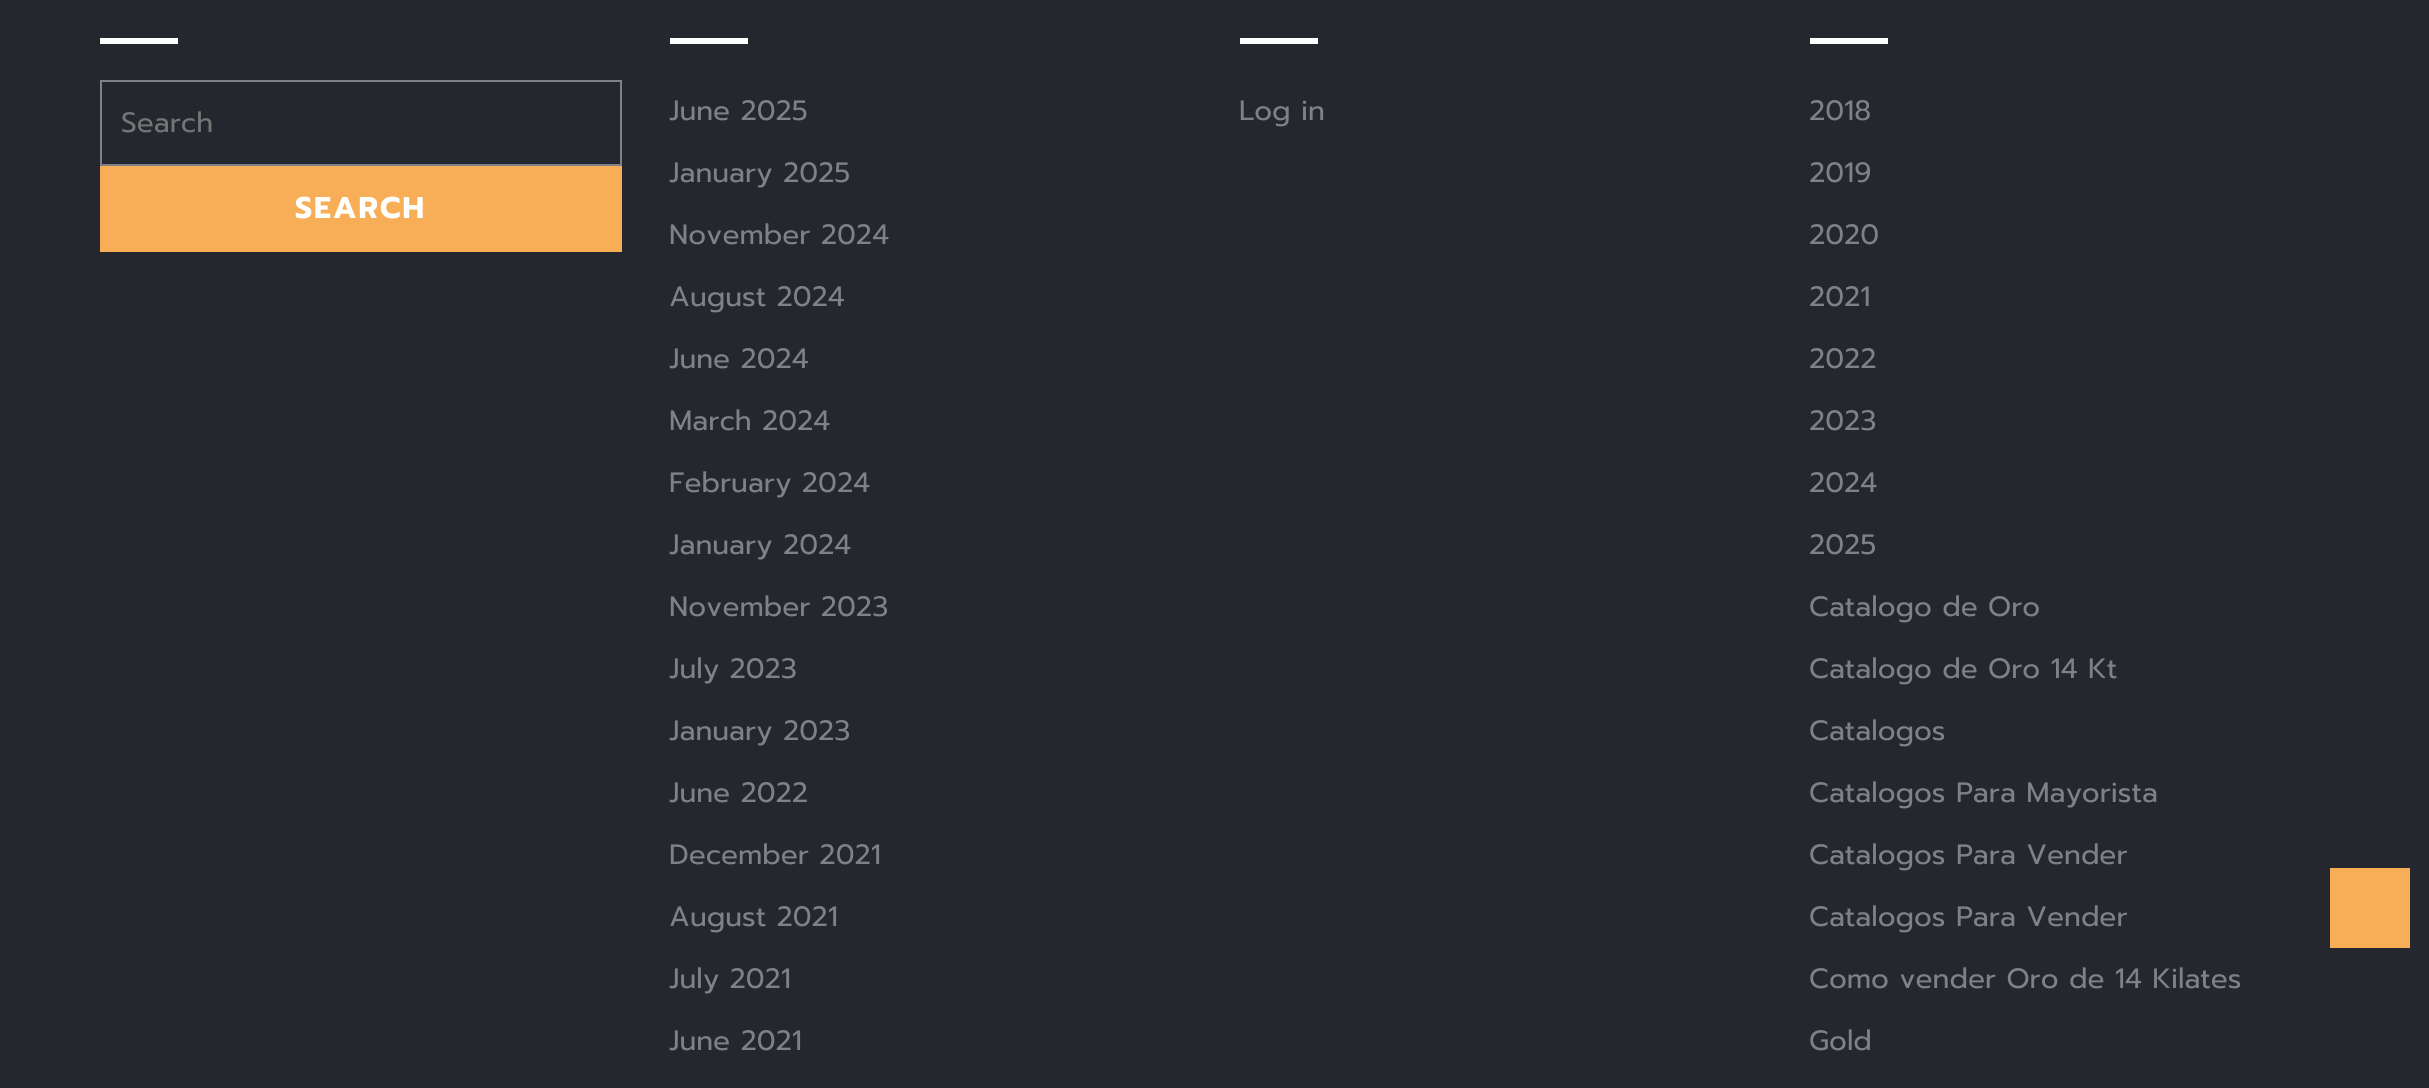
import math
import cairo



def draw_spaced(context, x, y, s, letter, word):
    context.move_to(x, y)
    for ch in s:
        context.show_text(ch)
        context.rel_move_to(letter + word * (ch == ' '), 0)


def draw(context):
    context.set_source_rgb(36 / 255, 39 / 255, 46 / 255)
    context.paint()
    context.set_source_rgb(1, 1, 1)
    context.rectangle(100, 38, 78, 6)
    context.fill()
    context.rectangle(101, 81, 520, 84)
    context.set_source_rgb(126 / 255, 129 / 255, 136 / 255)
    context.stroke()
    context.set_source_rgb(248 / 255, 174 / 255, 87 / 255)
    context.rectangle(100, 166, 522, 86)
    context.fill()
    context.set_source_rgb(1, 1, 1)
    context.rectangle(670, 38, 78, 6)
    context.fill()
    context.rectangle(1240, 38, 78, 6)
    context.fill()
    context.rectangle(1810, 38, 78, 6)
    context.fill()
    context.set_source_rgb(248 / 255, 174 / 255, 87 / 255)
    context.rectangle(2330, 868, 80, 80)
    context.fill()
    context.select_font_face("Prompt")
    context.set_font_size(28)
    context.set_source_rgb(117 / 255, 117 / 255, 117 / 255)
    context.move_to(121, 132)
    context.show_text("Search")
    context.select_font_face("Prompt", cairo.FontSlant.NORMAL, cairo.FontWeight.BOLD)
    context.set_font_size(30)
    context.set_source_rgb(1, 1, 1)
    draw_spaced(context, 295, 218, "SEARCH", 2, 0)
    context.select_font_face("Prompt")
    context.set_font_size(28)
    context.set_source_rgb(126 / 255, 129 / 255, 136 / 255)
    context.move_to(669, 120)
    context.show_text("June 2025")
    context.move_to(669, 182)
    context.show_text("January 2025")
    context.move_to(669, 244)
    context.show_text("November 2024")
    context.move_to(669, 306)
    context.show_text("August 2024")
    context.move_to(669, 368)
    context.show_text("June 2024")
    context.move_to(669, 430)
    context.show_text("March 2024")
    context.move_to(669, 492)
    context.show_text("February 2024")
    context.move_to(669, 554)
    context.show_text("January 2024")
    context.move_to(669, 616)
    context.show_text("November 2023")
    context.move_to(669, 678)
    context.show_text("July 2023")
    context.move_to(669, 740)
    context.show_text("January 2023")
    context.move_to(669, 802)
    context.show_text("June 2022")
    context.move_to(669, 864)
    context.show_text("December 2021")
    context.move_to(669, 926)
    context.show_text("August 2021")
    context.move_to(669, 988)
    context.show_text("July 2021")
    context.move_to(669, 1050)
    context.show_text("June 2021")
    context.move_to(1239, 120)
    context.show_text("Log in")
    context.move_to(1809, 120)
    context.show_text("2018")
    context.move_to(1809, 182)
    context.show_text("2019")
    context.move_to(1809, 244)
    context.show_text("2020")
    context.move_to(1809, 306)
    context.show_text("2021")
    context.move_to(1809, 368)
    context.show_text("2022")
    context.move_to(1809, 430)
    context.show_text("2023")
    context.move_to(1809, 492)
    context.show_text("2024")
    context.move_to(1809, 554)
    context.show_text("2025")
    context.move_to(1809, 616)
    context.show_text("Catalogo de Oro")
    context.move_to(1809, 678)
    context.show_text("Catalogo de Oro 14 Kt")
    context.move_to(1809, 740)
    context.show_text("Catalogos")
    context.move_to(1809, 802)
    context.show_text("Catalogos Para Mayorista")
    context.move_to(1809, 864)
    context.show_text("Catalogos Para Vender")
    context.move_to(1809, 926)
    context.show_text("Catalogos Para Vender")
    context.move_to(1809, 988)
    context.show_text("Como vender Oro de 14 Kilates")
    context.move_to(1809, 1050)
    context.show_text("Gold")


surface = cairo.ImageSurface(cairo.Format.RGB24, 2429, 1088)
context = cairo.Context(surface)
options = cairo.FontOptions()
options.set_hint_metrics(cairo.HintMetrics.OFF)
options.set_hint_style(cairo.HintStyle.NONE)
context.set_font_options(options)
context.set_miter_limit(4)
draw(context)
surface.write_to_png("out.png")
